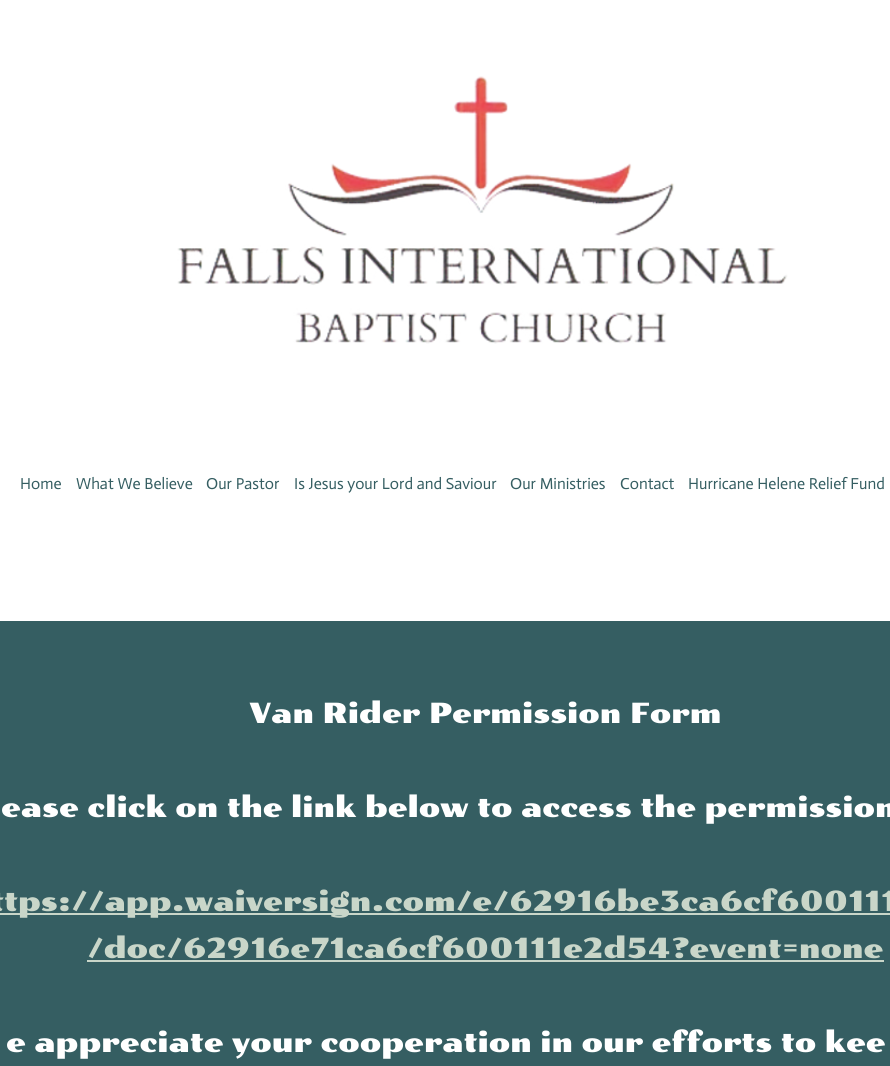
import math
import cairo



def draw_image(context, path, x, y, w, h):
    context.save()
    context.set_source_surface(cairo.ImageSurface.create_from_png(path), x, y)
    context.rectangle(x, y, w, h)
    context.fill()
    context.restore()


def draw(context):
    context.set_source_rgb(1, 1, 1)
    context.paint()
    draw_image(context, "images/1.png", 177, 76, 611, 268)
    context.set_source_rgb(53 / 255, 94 / 255, 98 / 255)
    context.rectangle(0, 621, 890, 445)
    context.fill()
    context.set_source_rgb(201 / 255, 214 / 255, 201 / 255)
    context.rectangle(0, 913, 890, 2)
    context.fill()
    context.rectangle(87, 960, 797, 2)
    context.fill()
    context.select_font_face("Actor")
    context.set_font_size(16)
    context.set_source_rgb(53 / 255, 94 / 255, 98 / 255)
    context.move_to(20, 489)
    context.show_text("Home")
    context.move_to(76, 489)
    context.show_text("What We Believe")
    context.move_to(206, 489)
    context.show_text("Our Pastor")
    context.move_to(294, 489)
    context.show_text("Is Jesus your Lord and Saviour")
    context.move_to(510, 489)
    context.show_text("Our Ministries")
    context.move_to(620, 489)
    context.show_text("Contact")
    context.move_to(688, 489)
    context.show_text("Hurricane Helene Relief Fund")
    context.select_font_face("Poller One")
    context.set_font_size(28)
    context.set_source_rgb(1, 1, 1)
    context.move_to(249, 723)
    context.show_text("Van Rider Permission Form")
    context.move_to(1, 817)
    context.show_text("ease click on the link below to access the permission")
    context.set_source_rgb(201 / 255, 214 / 255, 201 / 255)
    context.move_to(-10, 911)
    context.show_text("ttps://app.waiversign.com/e/62916be3ca6cf600111")
    context.move_to(87, 958)
    context.show_text("/doc/62916e71ca6cf600111e2d54?event=none")
    context.set_source_rgb(1, 1, 1)
    context.move_to(6, 1052)
    context.show_text("e appreciate your cooperation in our efforts to kee")


surface = cairo.ImageSurface(cairo.Format.RGB24, 890, 1066)
context = cairo.Context(surface)
options = cairo.FontOptions()
options.set_hint_metrics(cairo.HintMetrics.OFF)
options.set_hint_style(cairo.HintStyle.NONE)
context.set_font_options(options)
context.set_miter_limit(4)
draw(context)
surface.write_to_png("out.png")
